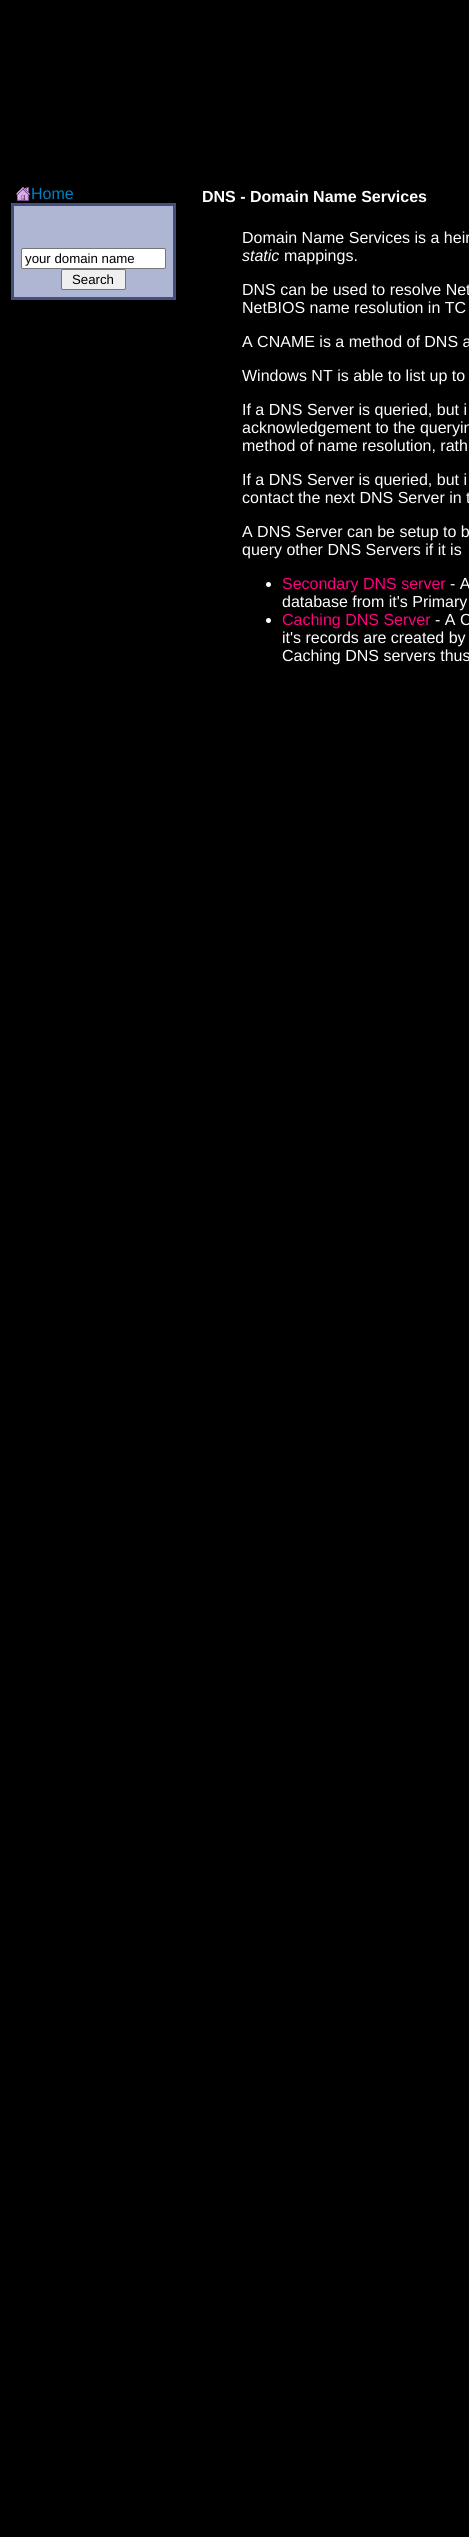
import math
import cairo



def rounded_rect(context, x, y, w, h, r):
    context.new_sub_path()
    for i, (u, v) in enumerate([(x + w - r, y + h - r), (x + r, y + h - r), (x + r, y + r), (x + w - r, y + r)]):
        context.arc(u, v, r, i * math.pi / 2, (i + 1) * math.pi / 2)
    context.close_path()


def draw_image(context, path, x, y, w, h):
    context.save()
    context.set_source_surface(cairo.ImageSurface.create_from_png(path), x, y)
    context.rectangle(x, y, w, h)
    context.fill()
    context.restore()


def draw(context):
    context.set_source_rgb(0, 0, 0)
    context.paint()
    draw_image(context, "images/1.png", 16, 187, 14, 14)
    context.set_source_rgb(69 / 255, 79 / 255, 124 / 255)
    context.rectangle(11, 203, 165, 97)
    context.fill()
    context.set_source_rgb(175 / 255, 182 / 255, 211 / 255)
    context.rectangle(14, 206, 159, 91)
    context.fill()
    context.set_source_rgb(1, 1, 1)
    rounded_rect(context, 21.5, 248.5, 144, 20, 1.5)
    context.fill_preserve()
    context.set_source_rgb(118 / 255, 118 / 255, 118 / 255)
    context.set_line_width(1)
    context.stroke()
    context.set_source_rgb(239 / 255, 239 / 255, 239 / 255)
    rounded_rect(context, 61.5, 269.5, 64, 20, 1.5)
    context.fill_preserve()
    context.set_source_rgb(118 / 255, 118 / 255, 118 / 255)
    context.stroke()
    context.set_source_rgb(1, 1, 1)
    context.arc(268.5, 584.5, 2.5, 0, 2 * math.pi)
    context.fill()
    context.arc(268.5, 620.5, 2.5, 0, 2 * math.pi)
    context.fill()
    context.select_font_face("Liberation Sans")
    context.set_font_size(16)
    context.set_source_rgb(0, 128 / 255, 192 / 255)
    context.move_to(31, 199)
    context.show_text("Home")
    context.set_font_size(13.25)
    context.set_source_rgb(0, 0, 0)
    context.move_to(25, 263)
    context.show_text("your domain name")
    context.move_to(72, 284)
    context.show_text("Search")
    context.select_font_face("Liberation Sans", cairo.FontSlant.NORMAL, cairo.FontWeight.BOLD)
    context.set_font_size(16)
    context.set_source_rgb(1, 1, 1)
    context.move_to(202, 202)
    context.show_text("DNS - Domain Name Services")
    context.select_font_face("Liberation Sans")
    context.move_to(242, 243)
    context.show_text("Domain Name Services is a heir")
    context.select_font_face("Liberation Sans", cairo.FontSlant.ITALIC)
    context.move_to(242, 261)
    context.show_text("static")
    context.select_font_face("Liberation Sans")
    context.move_to(284, 261)
    context.show_text("mappings.")
    context.move_to(242, 295)
    context.show_text("DNS can be used to resolve Net")
    context.move_to(242, 313)
    context.show_text("NetBIOS name resolution in TC")
    context.move_to(242, 347)
    context.show_text("A CNAME is a method of DNS a")
    context.move_to(242, 381)
    context.show_text("Windows NT is able to list up to")
    context.move_to(242, 415)
    context.show_text("If a DNS Server is queried, but i")
    context.move_to(242, 433)
    context.show_text("acknowledgement to the queryin")
    context.move_to(242, 451)
    context.show_text("method of name resolution, rath")
    context.move_to(242, 485)
    context.show_text("If a DNS Server is queried, but i")
    context.move_to(242, 503)
    context.show_text("contact the next DNS Server in t")
    context.move_to(242, 537)
    context.show_text("A DNS Server can be setup to b")
    context.move_to(242, 555)
    context.show_text("query other DNS Servers if it is")
    context.set_source_rgb(1, 0, 128 / 255)
    context.move_to(282, 589)
    context.show_text("Secondary DNS server")
    context.set_source_rgb(1, 1, 1)
    context.move_to(450, 589)
    context.show_text("- A")
    context.move_to(282, 607)
    context.show_text("database from it's Primary")
    context.set_source_rgb(1, 0, 128 / 255)
    context.move_to(282, 625)
    context.show_text("Caching DNS Server")
    context.set_source_rgb(1, 1, 1)
    context.move_to(435, 625)
    context.show_text("- A C")
    context.move_to(282, 643)
    context.show_text("it's records are created by")
    context.move_to(282, 661)
    context.show_text("Caching DNS servers thus")


surface = cairo.ImageSurface(cairo.Format.RGB24, 469, 2537)
context = cairo.Context(surface)
options = cairo.FontOptions()
options.set_hint_metrics(cairo.HintMetrics.OFF)
options.set_hint_style(cairo.HintStyle.NONE)
context.set_font_options(options)
context.set_miter_limit(4)
draw(context)
surface.write_to_png("out.png")
